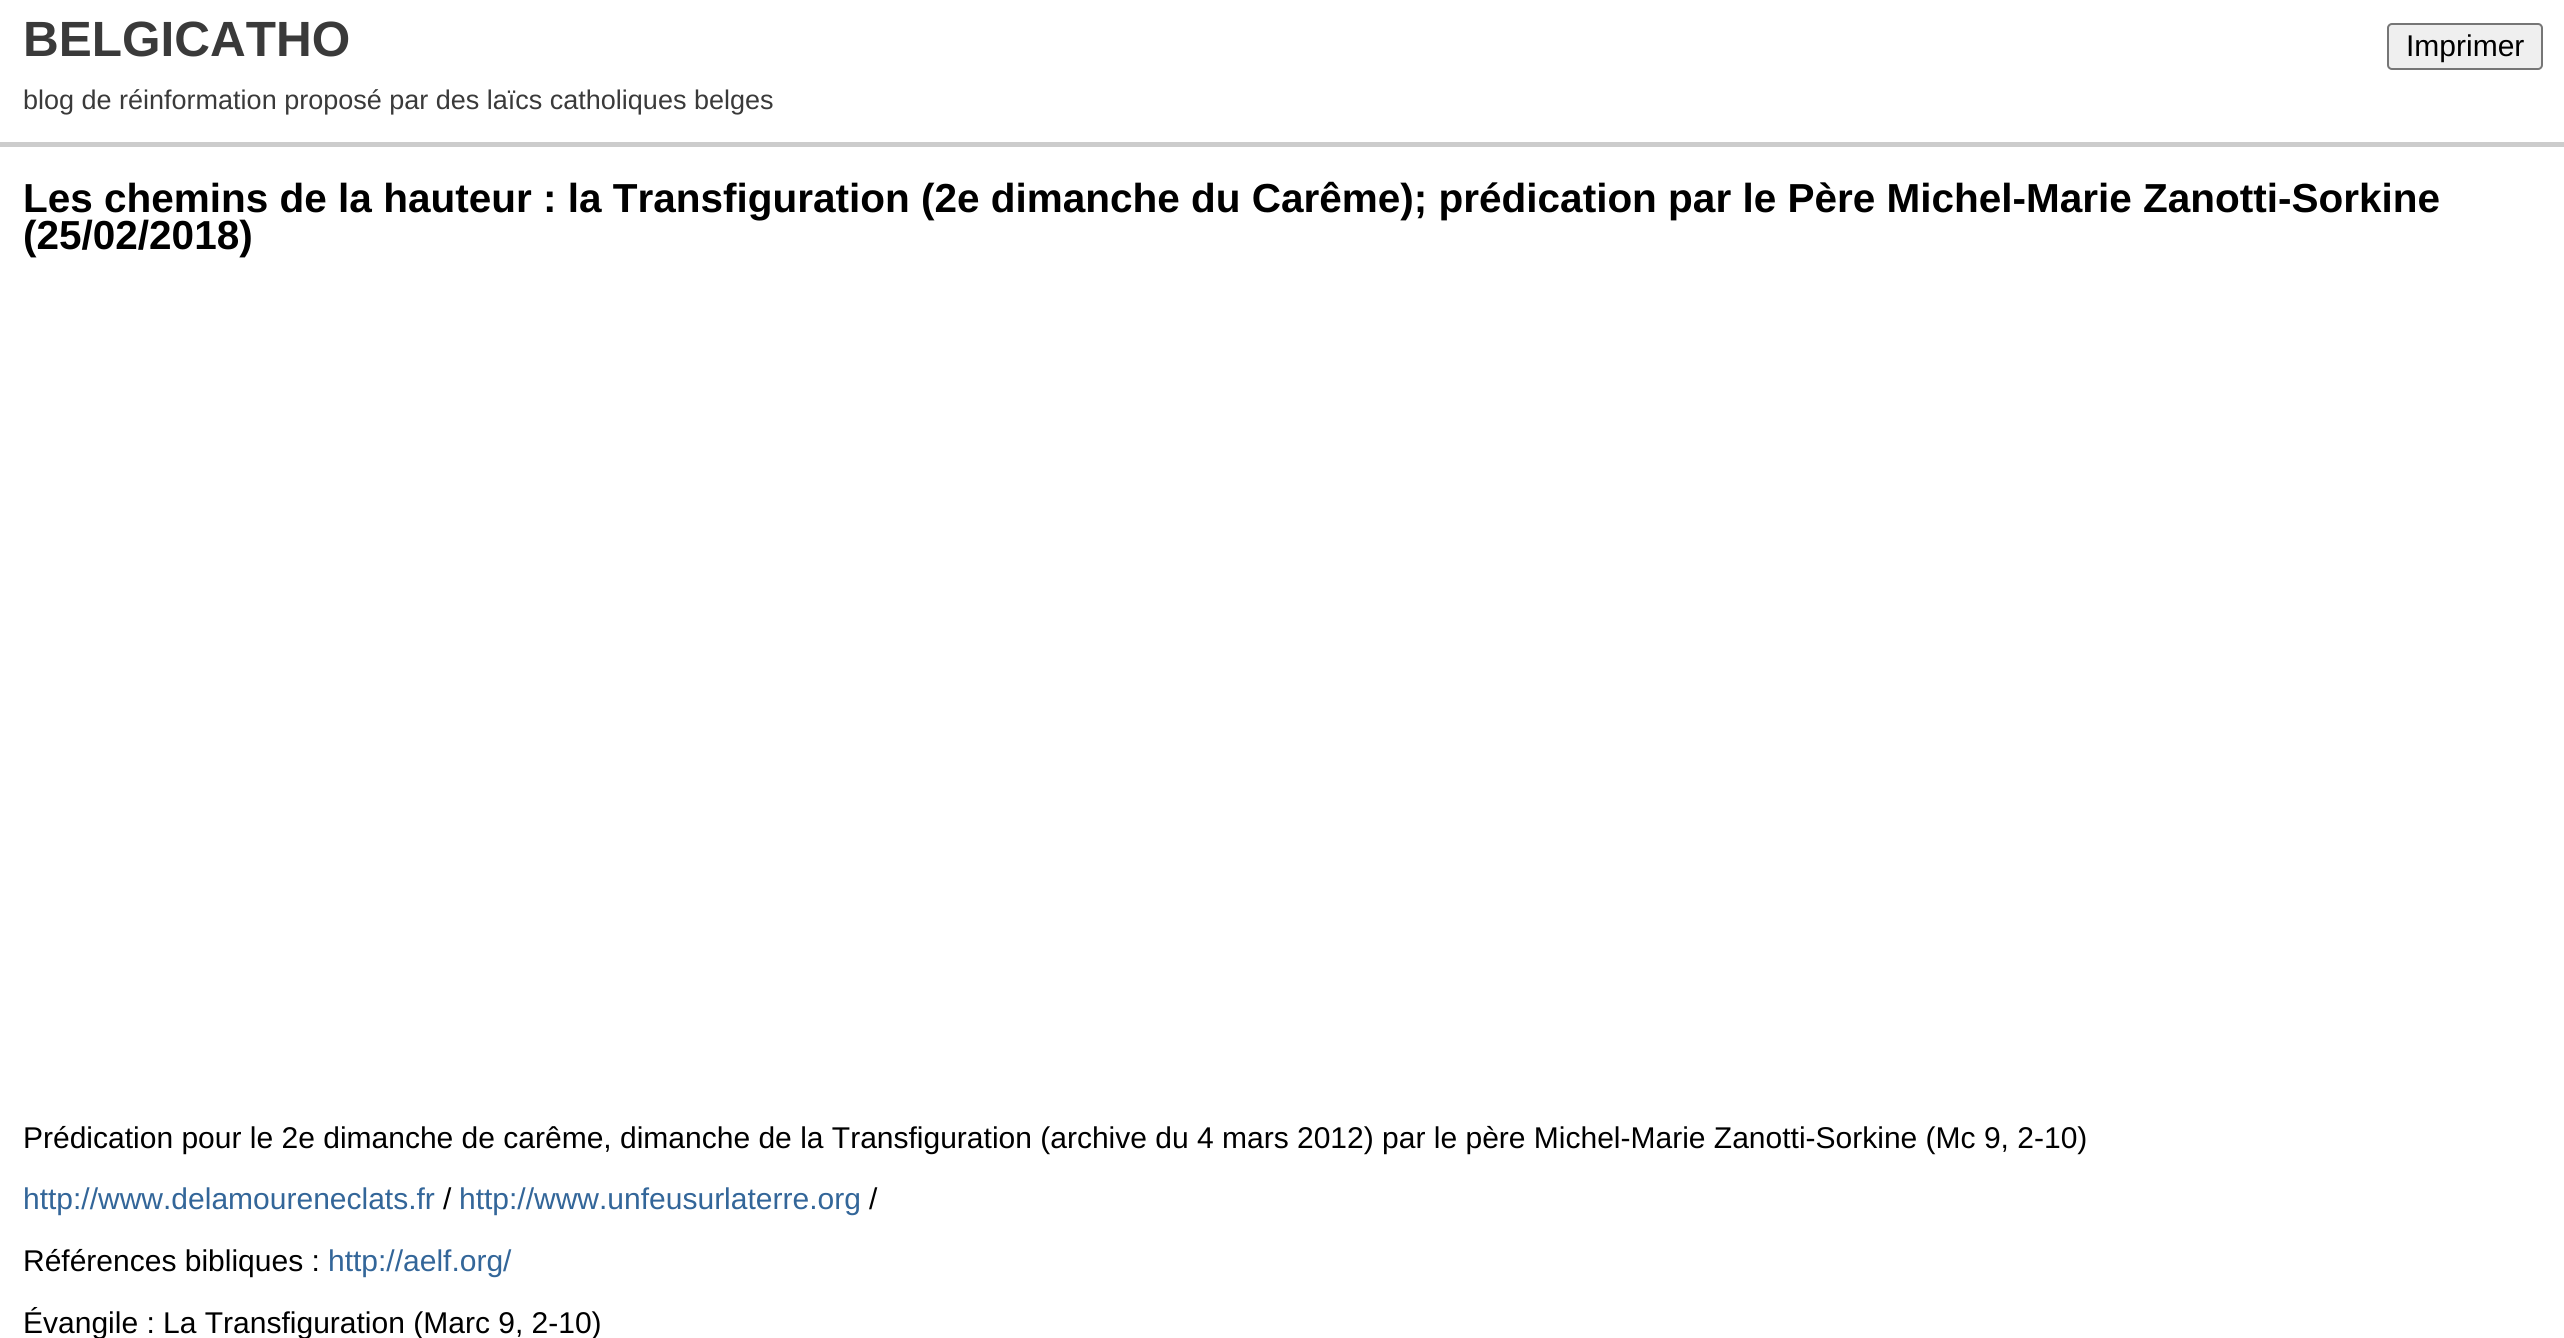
import math
import cairo



def rounded_rect(context, x, y, w, h, r):
    context.new_sub_path()
    for i, (u, v) in enumerate([(x + w - r, y + h - r), (x + r, y + h - r), (x + r, y + r), (x + w - r, y + r)]):
        context.arc(u, v, r, i * math.pi / 2, (i + 1) * math.pi / 2)
    context.close_path()


def draw(context):
    context.set_source_rgb(1, 1, 1)
    context.paint()
    context.set_source_rgb(204 / 255, 204 / 255, 204 / 255)
    context.rectangle(0, 142, 2564, 5)
    context.fill()
    context.set_source_rgb(239 / 255, 239 / 255, 239 / 255)
    rounded_rect(context, 2388, 24, 154, 45, 4)
    context.fill_preserve()
    context.set_source_rgb(118 / 255, 118 / 255, 118 / 255)
    context.stroke()
    context.select_font_face("Liberation Sans", cairo.FontSlant.NORMAL, cairo.FontWeight.BOLD)
    context.set_font_size(49.5)
    context.set_source_rgb(58 / 255, 58 / 255, 58 / 255)
    context.move_to(23, 56)
    context.show_text("BELGICATHO")
    context.select_font_face("Liberation Sans")
    context.set_font_size(30)
    context.set_source_rgb(0, 0, 0)
    context.move_to(2406, 56)
    context.show_text("Imprimer")
    context.set_font_size(27)
    context.set_source_rgb(58 / 255, 58 / 255, 58 / 255)
    context.move_to(23, 109)
    context.show_text("blog de réinformation proposé par des laïcs catholiques belges")
    context.select_font_face("Liberation Sans", cairo.FontSlant.NORMAL, cairo.FontWeight.BOLD)
    context.set_font_size(40.5)
    context.set_source_rgb(0, 0, 0)
    context.move_to(23, 212)
    context.show_text("Les chemins de la hauteur : la Transfiguration (2e dimanche du Carême); prédication par le Père Michel-Marie Zanotti-Sorkine")
    context.move_to(23, 249)
    context.show_text("(25/02/2018)")
    context.select_font_face("Liberation Sans")
    context.set_font_size(30)
    context.move_to(23, 1148)
    context.show_text("Prédication pour le 2e dimanche de carême, dimanche de la Transfiguration (archive du 4 mars 2012) par le père Michel-Marie Zanotti-Sorkine (Mc 9, 2-10)")
    context.set_source_rgb(51 / 255, 102 / 255, 153 / 255)
    context.move_to(23, 1209)
    context.show_text("http://www.delamoureneclats.fr")
    context.set_source_rgb(0, 0, 0)
    context.move_to(443, 1209)
    context.show_text("/")
    context.set_source_rgb(51 / 255, 102 / 255, 153 / 255)
    context.move_to(459, 1209)
    context.show_text("http://www.unfeusurlaterre.org")
    context.set_source_rgb(0, 0, 0)
    context.move_to(869, 1209)
    context.show_text("/")
    context.move_to(23, 1271)
    context.show_text("Références bibliques :")
    context.set_source_rgb(51 / 255, 102 / 255, 153 / 255)
    context.move_to(328, 1271)
    context.show_text("http://aelf.org/")
    context.set_source_rgb(0, 0, 0)
    context.move_to(23, 1333)
    context.show_text("Évangile : La Transfiguration (Marc 9, 2-10)")


surface = cairo.ImageSurface(cairo.Format.RGB24, 2564, 1338)
context = cairo.Context(surface)
options = cairo.FontOptions()
options.set_hint_metrics(cairo.HintMetrics.OFF)
options.set_hint_style(cairo.HintStyle.NONE)
context.set_font_options(options)
context.set_miter_limit(4)
draw(context)
surface.write_to_png("out.png")
